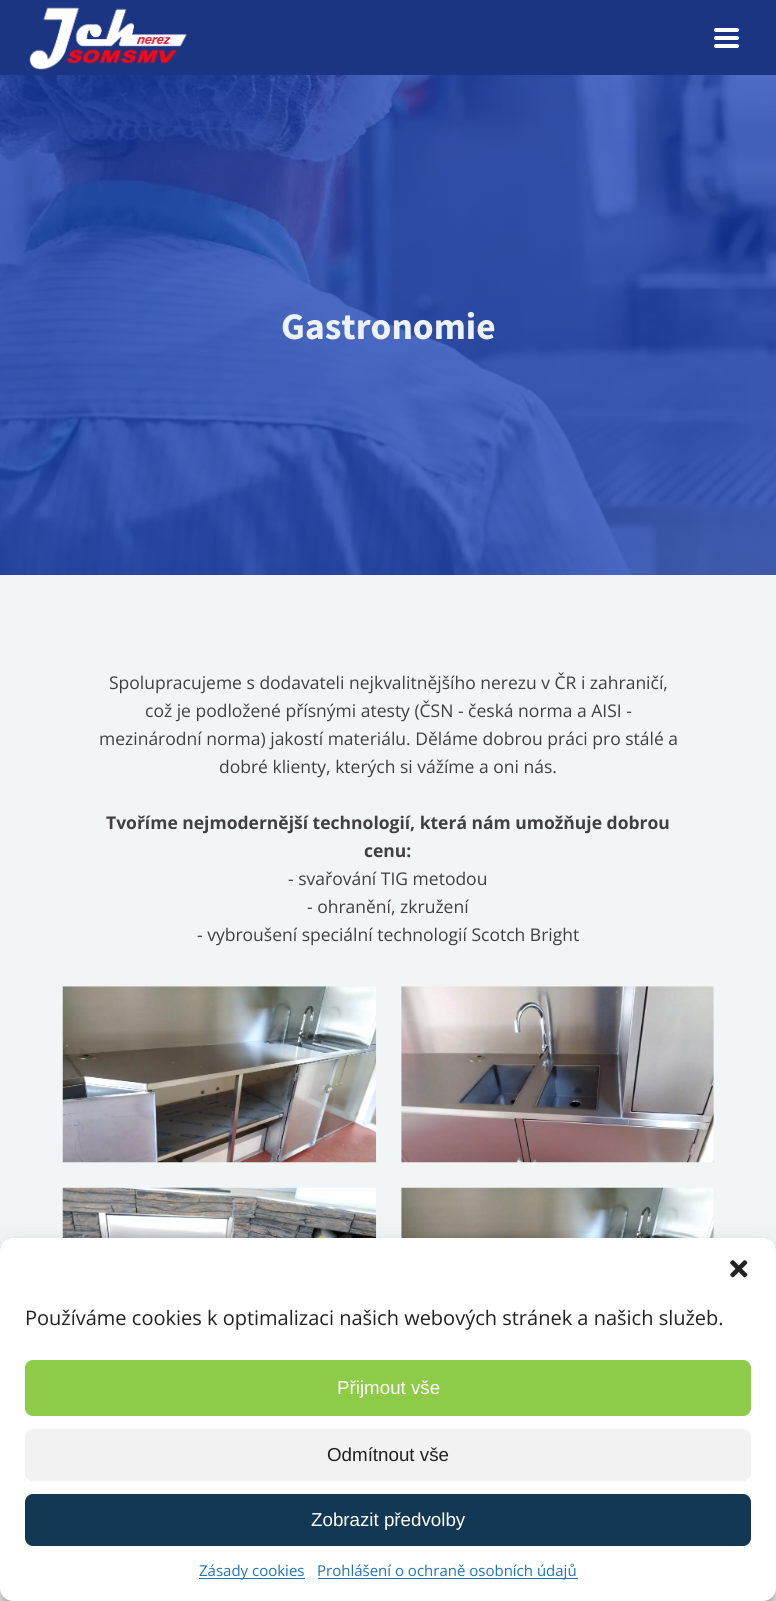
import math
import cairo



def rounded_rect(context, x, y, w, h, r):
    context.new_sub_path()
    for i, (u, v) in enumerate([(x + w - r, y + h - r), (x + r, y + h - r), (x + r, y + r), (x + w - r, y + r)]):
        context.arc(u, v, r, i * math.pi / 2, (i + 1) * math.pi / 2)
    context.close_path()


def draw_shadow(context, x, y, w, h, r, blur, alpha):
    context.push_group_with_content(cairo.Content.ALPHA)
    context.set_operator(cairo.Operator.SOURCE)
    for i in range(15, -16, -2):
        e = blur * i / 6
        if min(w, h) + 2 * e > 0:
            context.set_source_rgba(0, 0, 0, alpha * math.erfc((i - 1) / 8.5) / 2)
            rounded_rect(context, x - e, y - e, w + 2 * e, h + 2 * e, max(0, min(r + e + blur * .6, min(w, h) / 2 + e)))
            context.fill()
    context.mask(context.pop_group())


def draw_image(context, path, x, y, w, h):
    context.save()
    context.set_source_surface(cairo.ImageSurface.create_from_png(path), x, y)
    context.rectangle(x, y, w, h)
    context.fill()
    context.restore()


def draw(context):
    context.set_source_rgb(1, 1, 1)
    context.paint()
    context.set_source_rgb(28 / 255, 53 / 255, 130 / 255)
    context.rectangle(0, 0, 776, 75)
    context.fill()
    draw_image(context, "images/1.png", 29, 7, 158, 63)
    context.set_source_rgb(1, 1, 1)
    rounded_rect(context, 714, 28, 25, 4, 2)
    context.fill()
    rounded_rect(context, 714, 36, 25, 4, 2)
    context.fill()
    rounded_rect(context, 714, 44, 25, 4, 2)
    context.fill()
    draw_image(context, "images/2.png", 0, 75, 776, 500)
    context.set_source_rgb(241 / 255, 245 / 255, 246 / 255)
    context.rectangle(0, 575, 776, 676)
    context.fill()
    draw_image(context, "images/3.png", 62, 986, 315, 177)
    draw_image(context, "images/4.png", 401, 986, 313, 177)
    draw_image(context, "images/5.png", 62, 1187, 315, 51)
    draw_image(context, "images/6.png", 401, 1187, 313, 51)
    draw_image(context, "images/7.png", 12, 1600, 752, 1)
    context.set_source_rgb(0, 0, 0)
    draw_shadow(context, 0, 1245, 776, 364, 13, 4, 0.23)
    draw_shadow(context, 0, 1250, 776, 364, 13, 12.5, 0.19)
    context.set_source_rgb(1, 1, 1)
    rounded_rect(context, 0, 1238, 776, 363, 13)
    context.fill()
    draw_image(context, "images/8.png", 730, 1260, 18, 18)
    context.set_source_rgb(142 / 255, 203 / 255, 73 / 255)
    rounded_rect(context, 25.5, 1360.5, 725, 55, 7.5)
    context.fill_preserve()
    context.set_line_width(1)
    context.stroke()
    context.set_source_rgb(242 / 255, 242 / 255, 242 / 255)
    rounded_rect(context, 25.5, 1429.5, 725, 51, 7.5)
    context.fill_preserve()
    context.stroke()
    context.set_source_rgb(19 / 255, 56 / 255, 83 / 255)
    rounded_rect(context, 25.5, 1494.5, 725, 51, 7.5)
    context.fill_preserve()
    context.stroke()
    context.set_source_rgb(30 / 255, 115 / 255, 190 / 255)
    context.rectangle(199, 1578, 106, 1)
    context.fill()
    context.rectangle(318, 1578, 260, 1)
    context.fill()
    context.select_font_face("Source Sans Pro", cairo.FontSlant.NORMAL, cairo.FontWeight.BOLD)
    context.set_font_size(37.5)
    context.set_source_rgb(237 / 255, 242 / 255, 244 / 255)
    context.move_to(281, 339)
    context.show_text("Gastronomie")
    context.select_font_face("Open Sans")
    context.set_font_size(17.5)
    context.set_source_rgb(64 / 255, 64 / 255, 64 / 255)
    context.move_to(109, 689)
    context.show_text("Spolupracujeme s dodavateli nejkvalitnějšího nerezu v ČR i zahraničí,")
    context.move_to(145, 717)
    context.show_text("což je podložené přísnými atesty (ČSN - česká norma a AISI -")
    context.move_to(99, 745)
    context.show_text("mezinárodní norma) jakostí materiálu. Děláme dobrou práci pro stálé a")
    context.move_to(219, 773)
    context.show_text("dobré klienty, kterých si vážíme a oni nás.")
    context.select_font_face("Open Sans", cairo.FontSlant.NORMAL, cairo.FontWeight.BOLD)
    context.move_to(106, 829)
    context.show_text("Tvoříme nejmodernější technologií, která nám umožňuje dobrou")
    context.move_to(364, 857)
    context.show_text("cenu:")
    context.select_font_face("Open Sans")
    context.move_to(288, 885)
    context.show_text("- svařování TIG metodou")
    context.move_to(307, 913)
    context.show_text("- ohranění, zkružení")
    context.move_to(197, 941)
    context.show_text("- vybroušení speciální technologií Scotch Bright")
    context.set_font_size(20)
    context.set_source_rgb(34 / 255, 34 / 255, 34 / 255)
    context.move_to(25, 1325)
    context.show_text("Používáme cookies k optimalizaci našich webových stránek a našich služeb.")
    context.select_font_face("Liberation Sans")
    context.set_font_size(18.75)
    context.set_source_rgb(1, 1, 1)
    context.move_to(337, 1394)
    context.show_text("Přijmout vše")
    context.set_source_rgb(34 / 255, 34 / 255, 34 / 255)
    context.move_to(327, 1461)
    context.show_text("Odmítnout vše")
    context.set_source_rgb(1, 1, 1)
    context.move_to(311, 1526)
    context.show_text("Zobrazit předvolby")
    context.select_font_face("Open Sans")
    context.set_font_size(15)
    context.set_source_rgb(30 / 255, 115 / 255, 190 / 255)
    context.move_to(199, 1576)
    context.show_text("Zásady cookies")
    context.move_to(317, 1576)
    context.show_text("Prohlášení o ochraně osobních údajů")


surface = cairo.ImageSurface(cairo.Format.RGB24, 776, 1601)
context = cairo.Context(surface)
options = cairo.FontOptions()
options.set_hint_metrics(cairo.HintMetrics.OFF)
options.set_hint_style(cairo.HintStyle.NONE)
context.set_font_options(options)
context.set_miter_limit(4)
draw(context)
surface.write_to_png("out.png")
